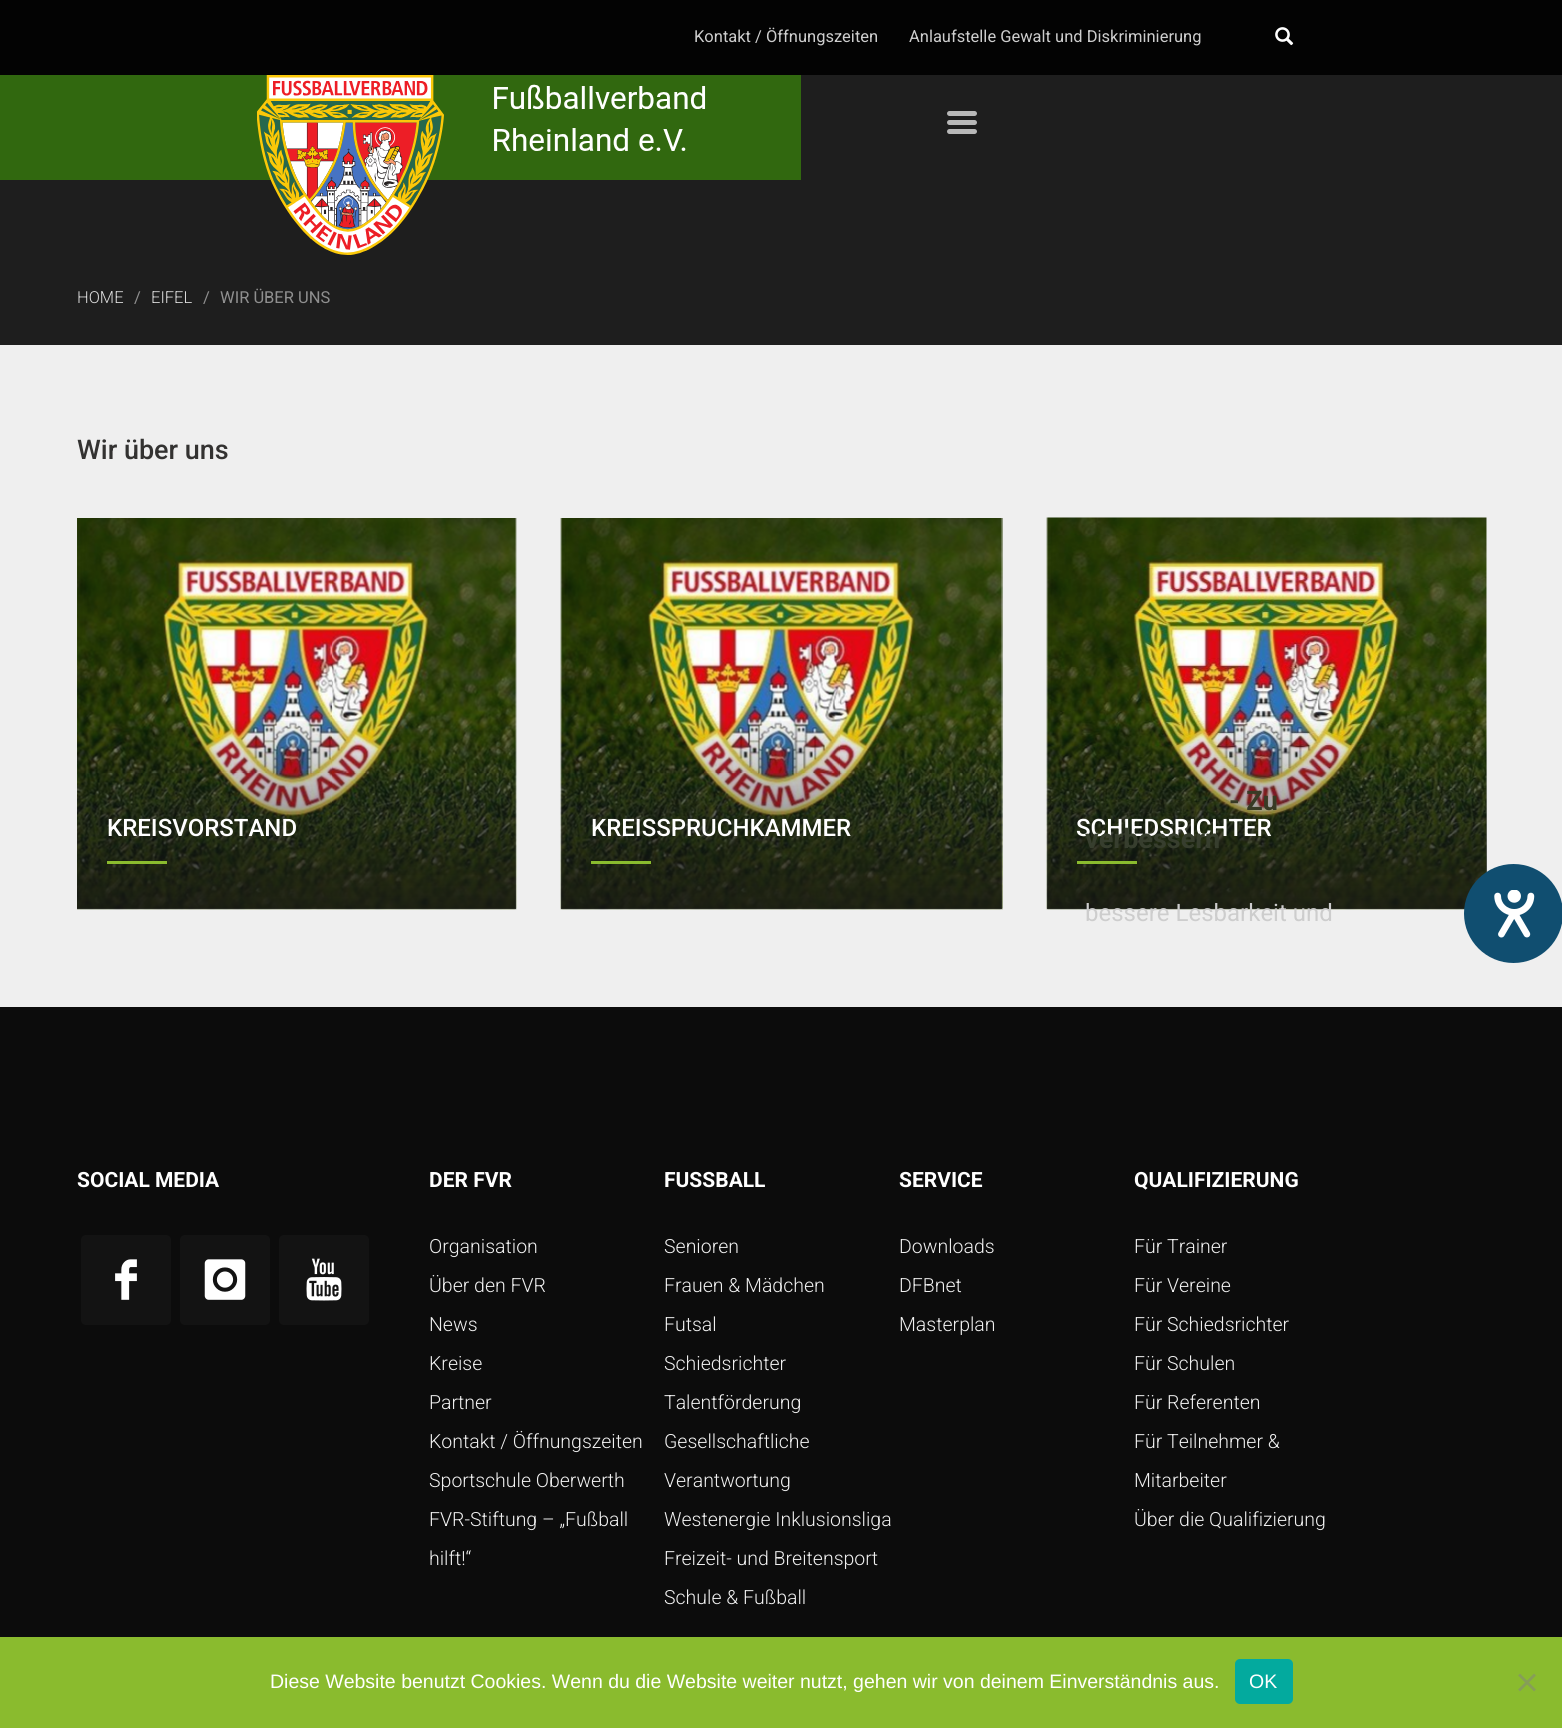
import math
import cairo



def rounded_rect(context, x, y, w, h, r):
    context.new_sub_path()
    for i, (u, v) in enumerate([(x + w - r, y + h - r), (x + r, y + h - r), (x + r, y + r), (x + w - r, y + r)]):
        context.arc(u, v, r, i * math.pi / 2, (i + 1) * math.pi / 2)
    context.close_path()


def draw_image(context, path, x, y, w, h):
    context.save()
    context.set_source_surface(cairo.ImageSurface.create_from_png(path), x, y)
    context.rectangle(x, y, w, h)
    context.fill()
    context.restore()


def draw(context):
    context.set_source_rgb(239 / 255, 239 / 255, 239 / 255)
    context.paint()
    context.set_source_rgb(3 / 255, 3 / 255, 3 / 255)
    context.rectangle(0, 0, 1562, 75)
    context.fill()
    draw_image(context, "images/1.png", 1275, 27, 19, 19)
    context.set_source_rgb(30 / 255, 30 / 255, 30 / 255)
    context.rectangle(0, 75, 1562, 270)
    context.fill()
    context.set_source_rgb(49 / 255, 104 / 255, 15 / 255)
    context.rectangle(0, 75, 801, 105)
    context.fill()
    draw_image(context, "images/2.png", 257, 75, 449, 180)
    context.set_source_rgb(184 / 255, 184 / 255, 184 / 255)
    rounded_rect(context, 947, 111, 30, 5, 2.5)
    context.fill()
    rounded_rect(context, 947, 120, 30, 5, 2.5)
    context.fill()
    rounded_rect(context, 947, 129, 30, 5, 2.5)
    context.fill()
    draw_image(context, "images/3.png", 77, 518, 440, 392)
    gradient = cairo.LinearGradient(296, 716, 296, 909)
    gradient.add_color_stop_rgba(0, 22 / 255, 22 / 255, 22 / 255, 0)
    gradient.add_color_stop_rgba(1, 22 / 255, 22 / 255, 22 / 255, 0.8)
    context.set_source(gradient)
    context.rectangle(77, 721, 439, 188)
    context.fill()
    context.set_source_rgb(138 / 255, 187 / 255, 46 / 255)
    context.rectangle(107, 861, 60, 3)
    context.fill()
    draw_image(context, "images/4.png", 560, 518, 443, 392)
    gradient = cairo.LinearGradient(782, 716, 782, 909)
    gradient.add_color_stop_rgba(0, 22 / 255, 22 / 255, 22 / 255, 0)
    gradient.add_color_stop_rgba(1, 22 / 255, 22 / 255, 22 / 255, 0.8)
    context.set_source(gradient)
    context.rectangle(561, 721, 441, 188)
    context.fill()
    context.set_source_rgb(138 / 255, 187 / 255, 46 / 255)
    context.rectangle(591, 861, 60, 3)
    context.fill()
    draw_image(context, "images/5.png", 1046, 517, 441, 393)
    gradient = cairo.LinearGradient(1267, 716, 1267, 909)
    gradient.add_color_stop_rgba(0, 22 / 255, 22 / 255, 22 / 255, 0)
    gradient.add_color_stop_rgba(1, 22 / 255, 22 / 255, 22 / 255, 0.8)
    context.set_source(gradient)
    context.rectangle(1047, 721, 440, 188)
    context.fill()
    context.set_source_rgb(138 / 255, 187 / 255, 46 / 255)
    context.rectangle(1077, 861, 60, 3)
    context.fill()
    context.set_source_rgb(12 / 255, 12 / 255, 12 / 255)
    context.rectangle(0, 1007, 1562, 630)
    context.fill()
    context.set_source_rgb(19 / 255, 19 / 255, 19 / 255)
    rounded_rect(context, 81, 1235, 90, 90, 5)
    context.fill()
    draw_image(context, "images/6.png", 115, 1259, 22, 41)
    rounded_rect(context, 180, 1235, 90, 90, 5)
    context.fill()
    draw_image(context, "images/7.png", 204, 1259, 42, 41)
    rounded_rect(context, 279, 1235, 90, 90, 5)
    context.fill()
    draw_image(context, "images/8.png", 306, 1258, 36, 43)
    context.set_source_rgb(16 / 255, 78 / 255, 112 / 255)
    context.arc(1513.5, 913.5, 49.5, 0, 2 * math.pi)
    context.fill()
    draw_image(context, "images/9.png", 1494, 890, 41, 48)
    context.set_source_rgb(138 / 255, 187 / 255, 46 / 255)
    context.rectangle(0, 1637, 1562, 91)
    context.fill()
    context.set_source_rgb(3 / 255, 170 / 255, 158 / 255)
    rounded_rect(context, 1235, 1659, 58, 45, 5)
    context.fill()
    context.set_source_rgb(134 / 255, 158 / 255, 88 / 255)
    context.new_path()
    context.move_to(1534, 1673.5)
    context.line_to(1536, 1675.5)
    context.line_to(1520, 1691.5)
    context.line_to(1518, 1689.5)
    context.close_path()
    context.fill()
    context.new_path()
    context.move_to(1518, 1675.5)
    context.line_to(1520, 1673.5)
    context.line_to(1536, 1689.5)
    context.line_to(1534, 1691.5)
    context.close_path()
    context.fill()
    context.select_font_face("Roboto")
    context.set_font_size(16.5)
    context.set_source_rgb(205 / 255, 205 / 255, 205 / 255)
    context.move_to(694, 42)
    context.show_text("Kontakt / Öffnungszeiten")
    context.move_to(909, 42)
    context.show_text("Anlaufstelle Gewalt und Diskriminierung")
    context.select_font_face("Roboto Light")
    context.set_source_rgb(221 / 255, 221 / 255, 221 / 255)
    context.move_to(77, 303)
    context.show_text("HOME")
    context.select_font_face("Roboto")
    context.set_source_rgb(143 / 255, 143 / 255, 143 / 255)
    context.move_to(134, 303)
    context.show_text("/")
    context.select_font_face("Roboto Light")
    context.set_source_rgb(221 / 255, 221 / 255, 221 / 255)
    context.move_to(151, 303)
    context.show_text("EIFEL")
    context.select_font_face("Roboto")
    context.set_source_rgb(143 / 255, 143 / 255, 143 / 255)
    context.move_to(203, 303)
    context.show_text("/")
    context.move_to(220, 303)
    context.show_text("WIR ÜBER UNS")
    context.select_font_face("Roboto Medium")
    context.set_font_size(27)
    context.set_source_rgb(51 / 255, 50 / 255, 49 / 255)
    context.move_to(77, 459)
    context.show_text("Wir über uns")
    context.set_font_size(24)
    context.set_source_rgb(1, 1, 1)
    context.move_to(107, 836)
    context.show_text("KREISVORSTAND")
    context.move_to(591, 836)
    context.show_text("KREISSPRUCHKAMMER")
    context.move_to(1076, 836)
    context.show_text("SCHIEDSRICHTER")
    context.select_font_face("Roboto", cairo.FontSlant.NORMAL, cairo.FontWeight.BOLD)
    context.set_font_size(21)
    context.move_to(77, 1187)
    context.show_text("SOCIAL MEDIA")
    context.move_to(429, 1187)
    context.show_text("DER FVR")
    context.select_font_face("Roboto Light")
    context.set_font_size(19.5)
    context.set_source_rgb(239 / 255, 239 / 255, 239 / 255)
    context.move_to(429, 1253)
    context.show_text("Organisation")
    context.move_to(429, 1292)
    context.show_text("Über den FVR")
    context.move_to(429, 1331)
    context.show_text("News")
    context.move_to(429, 1370)
    context.show_text("Kreise")
    context.move_to(429, 1409)
    context.show_text("Partner")
    context.move_to(429, 1448)
    context.show_text("Kontakt / Öffnungszeiten")
    context.move_to(429, 1487)
    context.show_text("Sportschule Oberwerth")
    context.move_to(429, 1526)
    context.show_text("FVR-Stiftung – „Fußball")
    context.move_to(429, 1565)
    context.show_text("hilft!“")
    context.select_font_face("Roboto", cairo.FontSlant.NORMAL, cairo.FontWeight.BOLD)
    context.set_font_size(21)
    context.set_source_rgb(1, 1, 1)
    context.move_to(664, 1187)
    context.show_text("FUSSBALL")
    context.select_font_face("Roboto Light")
    context.set_font_size(19.5)
    context.set_source_rgb(239 / 255, 239 / 255, 239 / 255)
    context.move_to(664, 1253)
    context.show_text("Senioren")
    context.move_to(664, 1292)
    context.show_text("Frauen & Mädchen")
    context.move_to(664, 1331)
    context.show_text("Futsal")
    context.move_to(664, 1370)
    context.show_text("Schiedsrichter")
    context.move_to(664, 1409)
    context.show_text("Talentförderung")
    context.move_to(664, 1448)
    context.show_text("Gesellschaftliche")
    context.move_to(664, 1487)
    context.show_text("Verantwortung")
    context.move_to(664, 1526)
    context.show_text("Westenergie Inklusionsliga")
    context.move_to(664, 1565)
    context.show_text("Freizeit- und Breitensport")
    context.move_to(664, 1604)
    context.show_text("Schule & Fußball")
    context.select_font_face("Roboto", cairo.FontSlant.NORMAL, cairo.FontWeight.BOLD)
    context.set_font_size(21)
    context.set_source_rgb(1, 1, 1)
    context.move_to(899, 1187)
    context.show_text("SERVICE")
    context.select_font_face("Roboto Light")
    context.set_font_size(19.5)
    context.set_source_rgb(239 / 255, 239 / 255, 239 / 255)
    context.move_to(899, 1253)
    context.show_text("Downloads")
    context.move_to(899, 1292)
    context.show_text("DFBnet")
    context.move_to(899, 1331)
    context.show_text("Masterplan")
    context.select_font_face("Roboto", cairo.FontSlant.NORMAL, cairo.FontWeight.BOLD)
    context.set_font_size(21)
    context.set_source_rgb(1, 1, 1)
    context.move_to(1134, 1187)
    context.show_text("QUALIFIZIERUNG")
    context.select_font_face("Roboto Light")
    context.set_font_size(19.5)
    context.set_source_rgb(239 / 255, 239 / 255, 239 / 255)
    context.move_to(1134, 1253)
    context.show_text("Für Trainer")
    context.move_to(1134, 1292)
    context.show_text("Für Vereine")
    context.move_to(1134, 1331)
    context.show_text("Für Schiedsrichter")
    context.move_to(1134, 1370)
    context.show_text("Für Schulen")
    context.move_to(1134, 1409)
    context.show_text("Für Referenten")
    context.move_to(1134, 1448)
    context.show_text("Für Teilnehmer &")
    context.move_to(1134, 1487)
    context.show_text("Mitarbeiter")
    context.move_to(1134, 1526)
    context.show_text("Über die Qualifizierung")
    context.select_font_face("Roboto", cairo.FontSlant.NORMAL, cairo.FontWeight.BOLD)
    context.set_font_size(27)
    context.set_source_rgb(56 / 255, 59 / 255, 37 / 255)
    context.move_to(1229, 810)
    context.show_text("- Zu")
    context.set_source_rgb(55 / 255, 62 / 255, 46 / 255)
    context.move_to(1085, 848)
    context.show_text("verbessern")
    context.select_font_face("Roboto")
    context.set_font_size(24)
    context.set_source_rgb(205 / 255, 205 / 255, 205 / 255)
    context.move_to(1085, 921)
    context.show_text("bessere Lesbarkeit und")
    context.select_font_face("Liberation Sans")
    context.set_font_size(19.5)
    context.set_source_rgb(1, 1, 1)
    context.move_to(270, 1688)
    context.show_text("Diese Website benutzt Cookies. Wenn du die Website weiter nutzt, gehen wir von deinem Einverständnis aus.")
    context.move_to(1249, 1688)
    context.show_text("OK")


surface = cairo.ImageSurface(cairo.Format.RGB24, 1562, 1728)
context = cairo.Context(surface)
options = cairo.FontOptions()
options.set_hint_metrics(cairo.HintMetrics.OFF)
options.set_hint_style(cairo.HintStyle.NONE)
context.set_font_options(options)
context.set_miter_limit(4)
draw(context)
surface.write_to_png("out.png")
